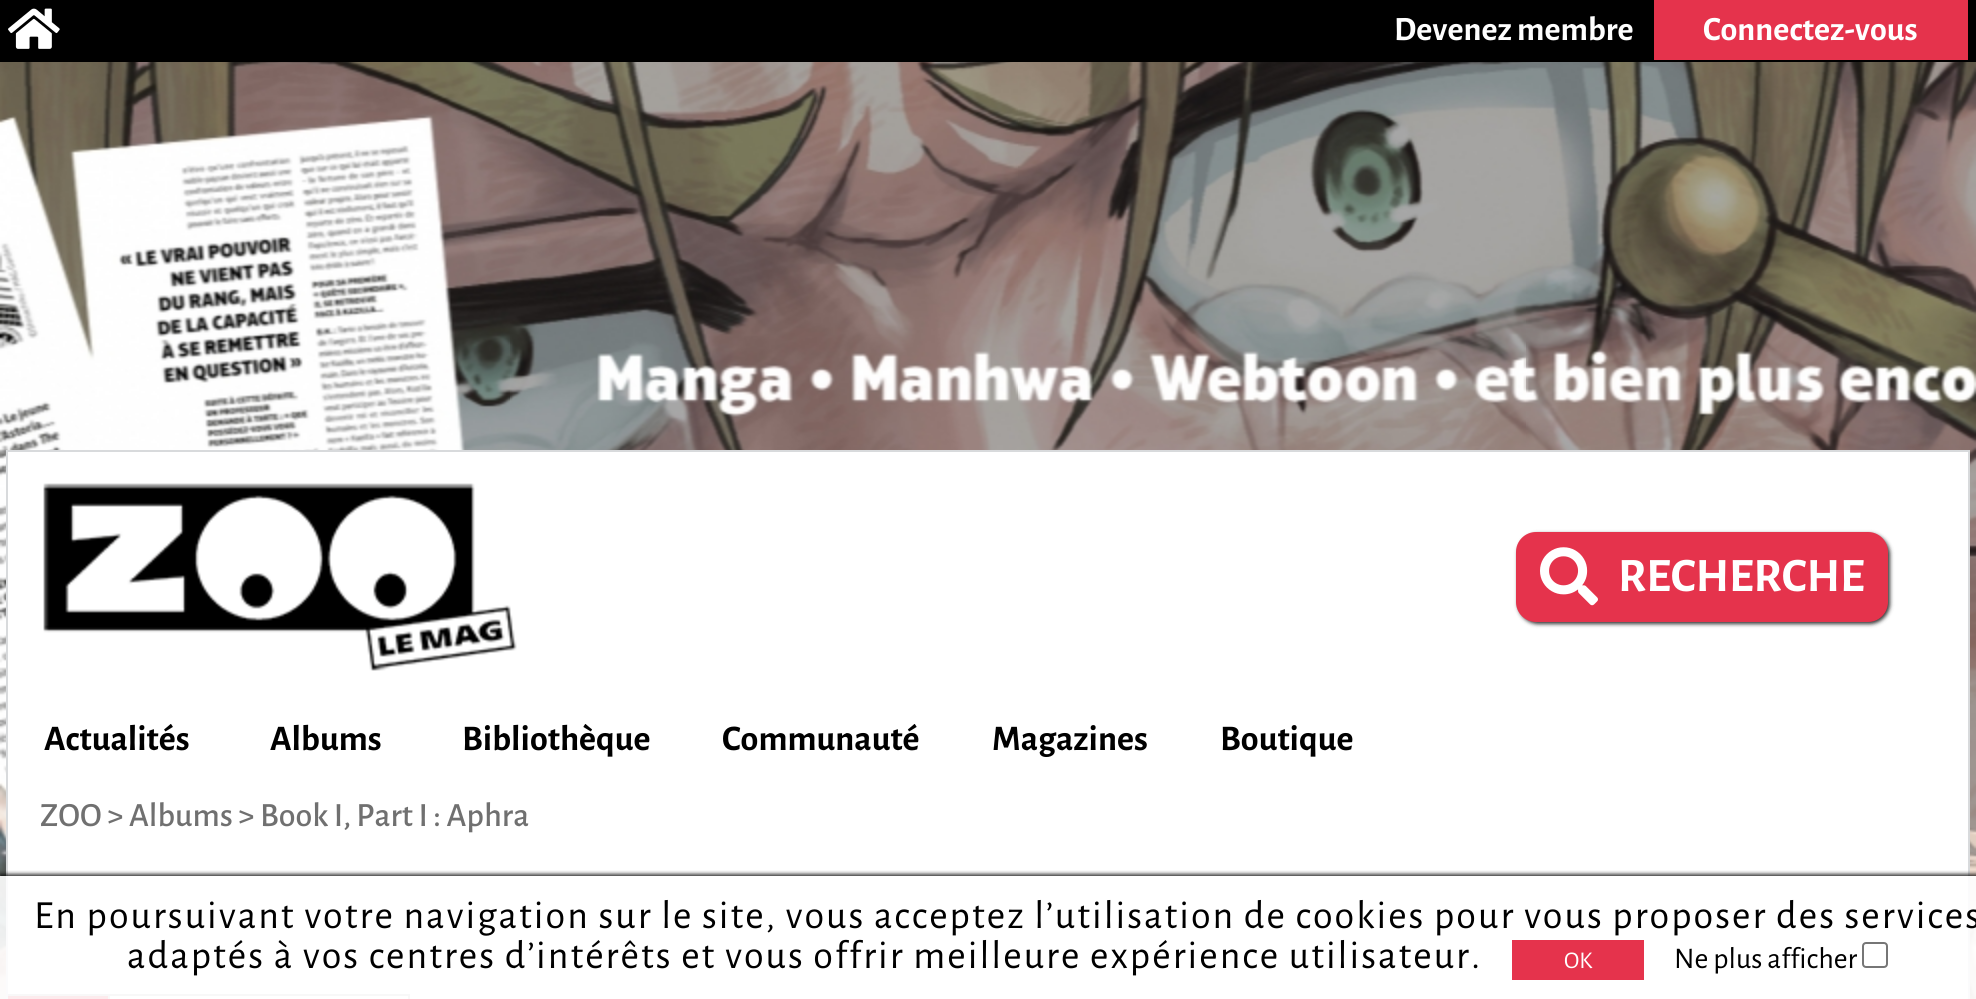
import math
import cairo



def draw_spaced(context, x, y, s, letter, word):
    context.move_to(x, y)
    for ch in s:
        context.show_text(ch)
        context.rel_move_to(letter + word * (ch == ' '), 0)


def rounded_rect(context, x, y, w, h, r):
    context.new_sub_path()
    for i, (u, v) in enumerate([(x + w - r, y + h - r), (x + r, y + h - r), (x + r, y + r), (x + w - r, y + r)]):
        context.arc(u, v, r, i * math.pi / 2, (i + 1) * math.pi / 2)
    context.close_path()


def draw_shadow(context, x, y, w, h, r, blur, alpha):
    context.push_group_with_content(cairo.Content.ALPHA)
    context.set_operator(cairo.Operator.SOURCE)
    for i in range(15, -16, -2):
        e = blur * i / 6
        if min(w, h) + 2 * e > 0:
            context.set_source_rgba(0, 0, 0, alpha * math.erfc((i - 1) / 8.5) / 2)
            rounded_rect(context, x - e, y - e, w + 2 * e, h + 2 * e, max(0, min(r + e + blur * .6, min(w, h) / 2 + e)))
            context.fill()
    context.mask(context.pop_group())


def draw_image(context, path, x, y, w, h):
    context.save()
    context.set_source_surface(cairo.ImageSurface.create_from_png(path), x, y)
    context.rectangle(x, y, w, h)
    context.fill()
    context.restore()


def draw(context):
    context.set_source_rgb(1, 1, 1)
    context.paint()
    draw_image(context, "images/1.png", 0, 62, 1976, 937)
    context.set_source_rgb(0, 0, 0)
    context.rectangle(0, 0, 1976, 62)
    context.fill()
    draw_image(context, "images/2.png", 8, 8, 52, 41)
    context.set_source_rgb(229 / 255, 51 / 255, 76 / 255)
    context.rectangle(1654, 0, 314, 60)
    context.fill()
    context.set_source_rgb(1, 1, 1)
    context.rectangle(7, 451, 1962, 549)
    context.fill_preserve()
    context.set_source_rgb(216 / 255, 218 / 255, 220 / 255)
    context.stroke()
    draw_image(context, "images/3.png", 43, 483, 474, 188)
    context.set_source_rgb(0, 0, 0)
    draw_shadow(context, 1518, 534, 372, 90, 20, 2, 0.8)
    context.set_source_rgb(229 / 255, 51 / 255, 76 / 255)
    rounded_rect(context, 1516, 532, 372, 90, 20)
    context.fill()
    draw_image(context, "images/4.png", 1540, 547, 58, 59)
    context.set_source_rgb(187 / 255, 187 / 255, 187 / 255)
    context.rectangle(8, 994, 402, 2)
    context.fill()
    context.rectangle(408, 994, 2, 5)
    context.fill()
    context.set_source_rgb(229 / 255, 51 / 255, 76 / 255)
    context.rectangle(8, 996, 102, 3)
    context.fill()
    context.set_source_rgb(187 / 255, 187 / 255, 187 / 255)
    context.rectangle(108, 994, 2, 5)
    context.fill()
    context.save()
    context.rectangle(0, 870, 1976, 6)
    context.clip()
    context.set_source_rgb(0, 0, 0)
    draw_shadow(context, 0, 874, 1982, 124, 0, 2, 0.8)
    context.restore()
    context.set_source_rgba(1, 1, 1, 0.9)
    context.rectangle(0, 876, 1976, 123)
    context.fill()
    context.set_source_rgb(229 / 255, 51 / 255, 76 / 255)
    context.rectangle(1512, 940, 132, 40)
    context.fill()
    rounded_rect(context, 1863, 943, 24, 24, 3)
    context.set_source_rgb(118 / 255, 118 / 255, 118 / 255)
    context.stroke()
    context.select_font_face("Alegreya Sans", cairo.FontSlant.NORMAL, cairo.FontWeight.BOLD)
    context.set_font_size(34)
    context.set_source_rgb(1, 1, 1)
    context.move_to(1394, 40)
    context.show_text("Devenez membre")
    context.move_to(1703, 40)
    context.show_text("Connectez-vous")
    context.set_font_size(48)
    context.move_to(1618, 591)
    context.show_text("RECHERCHE")
    context.set_font_size(36)
    context.set_source_rgb(0, 0, 0)
    context.move_to(44, 750)
    context.show_text("Actualités")
    context.move_to(270, 750)
    context.show_text("Albums")
    context.move_to(462, 750)
    context.show_text("Bibliothèque")
    context.move_to(722, 750)
    context.show_text("Communauté")
    context.move_to(992, 750)
    context.show_text("Magazines")
    context.move_to(1220, 750)
    context.show_text("Boutique")
    context.select_font_face("Alegreya Sans Medium")
    context.set_font_size(34)
    context.set_source_rgb(112 / 255, 112 / 255, 112 / 255)
    context.move_to(40, 826)
    context.show_text("ZOO > Albums > Book I, Part I : Aphra")
    context.select_font_face("Alegreya Sans")
    context.set_font_size(40)
    context.set_source_rgb(0, 0, 0)
    draw_spaced(context, 34, 928, "En poursuivant votre navigation sur le site, vous acceptez l’utilisation de cookies pour vous proposer des services", 2, 0)
    draw_spaced(context, 127, 968, "adaptés à vos centres d’intérêts et vous offrir meilleure expérience utilisateur.", 2, 0)
    context.set_font_size(24)
    context.set_source_rgb(1, 1, 1)
    context.move_to(1564, 968)
    context.show_text("OK")
    context.set_font_size(30)
    context.set_source_rgb(0, 0, 0)
    context.move_to(1674, 968)
    context.show_text("Ne plus afficher")


surface = cairo.ImageSurface(cairo.Format.RGB24, 1976, 999)
context = cairo.Context(surface)
options = cairo.FontOptions()
options.set_hint_metrics(cairo.HintMetrics.OFF)
options.set_hint_style(cairo.HintStyle.NONE)
context.set_font_options(options)
context.set_miter_limit(4)
draw(context)
surface.write_to_png("out.png")
